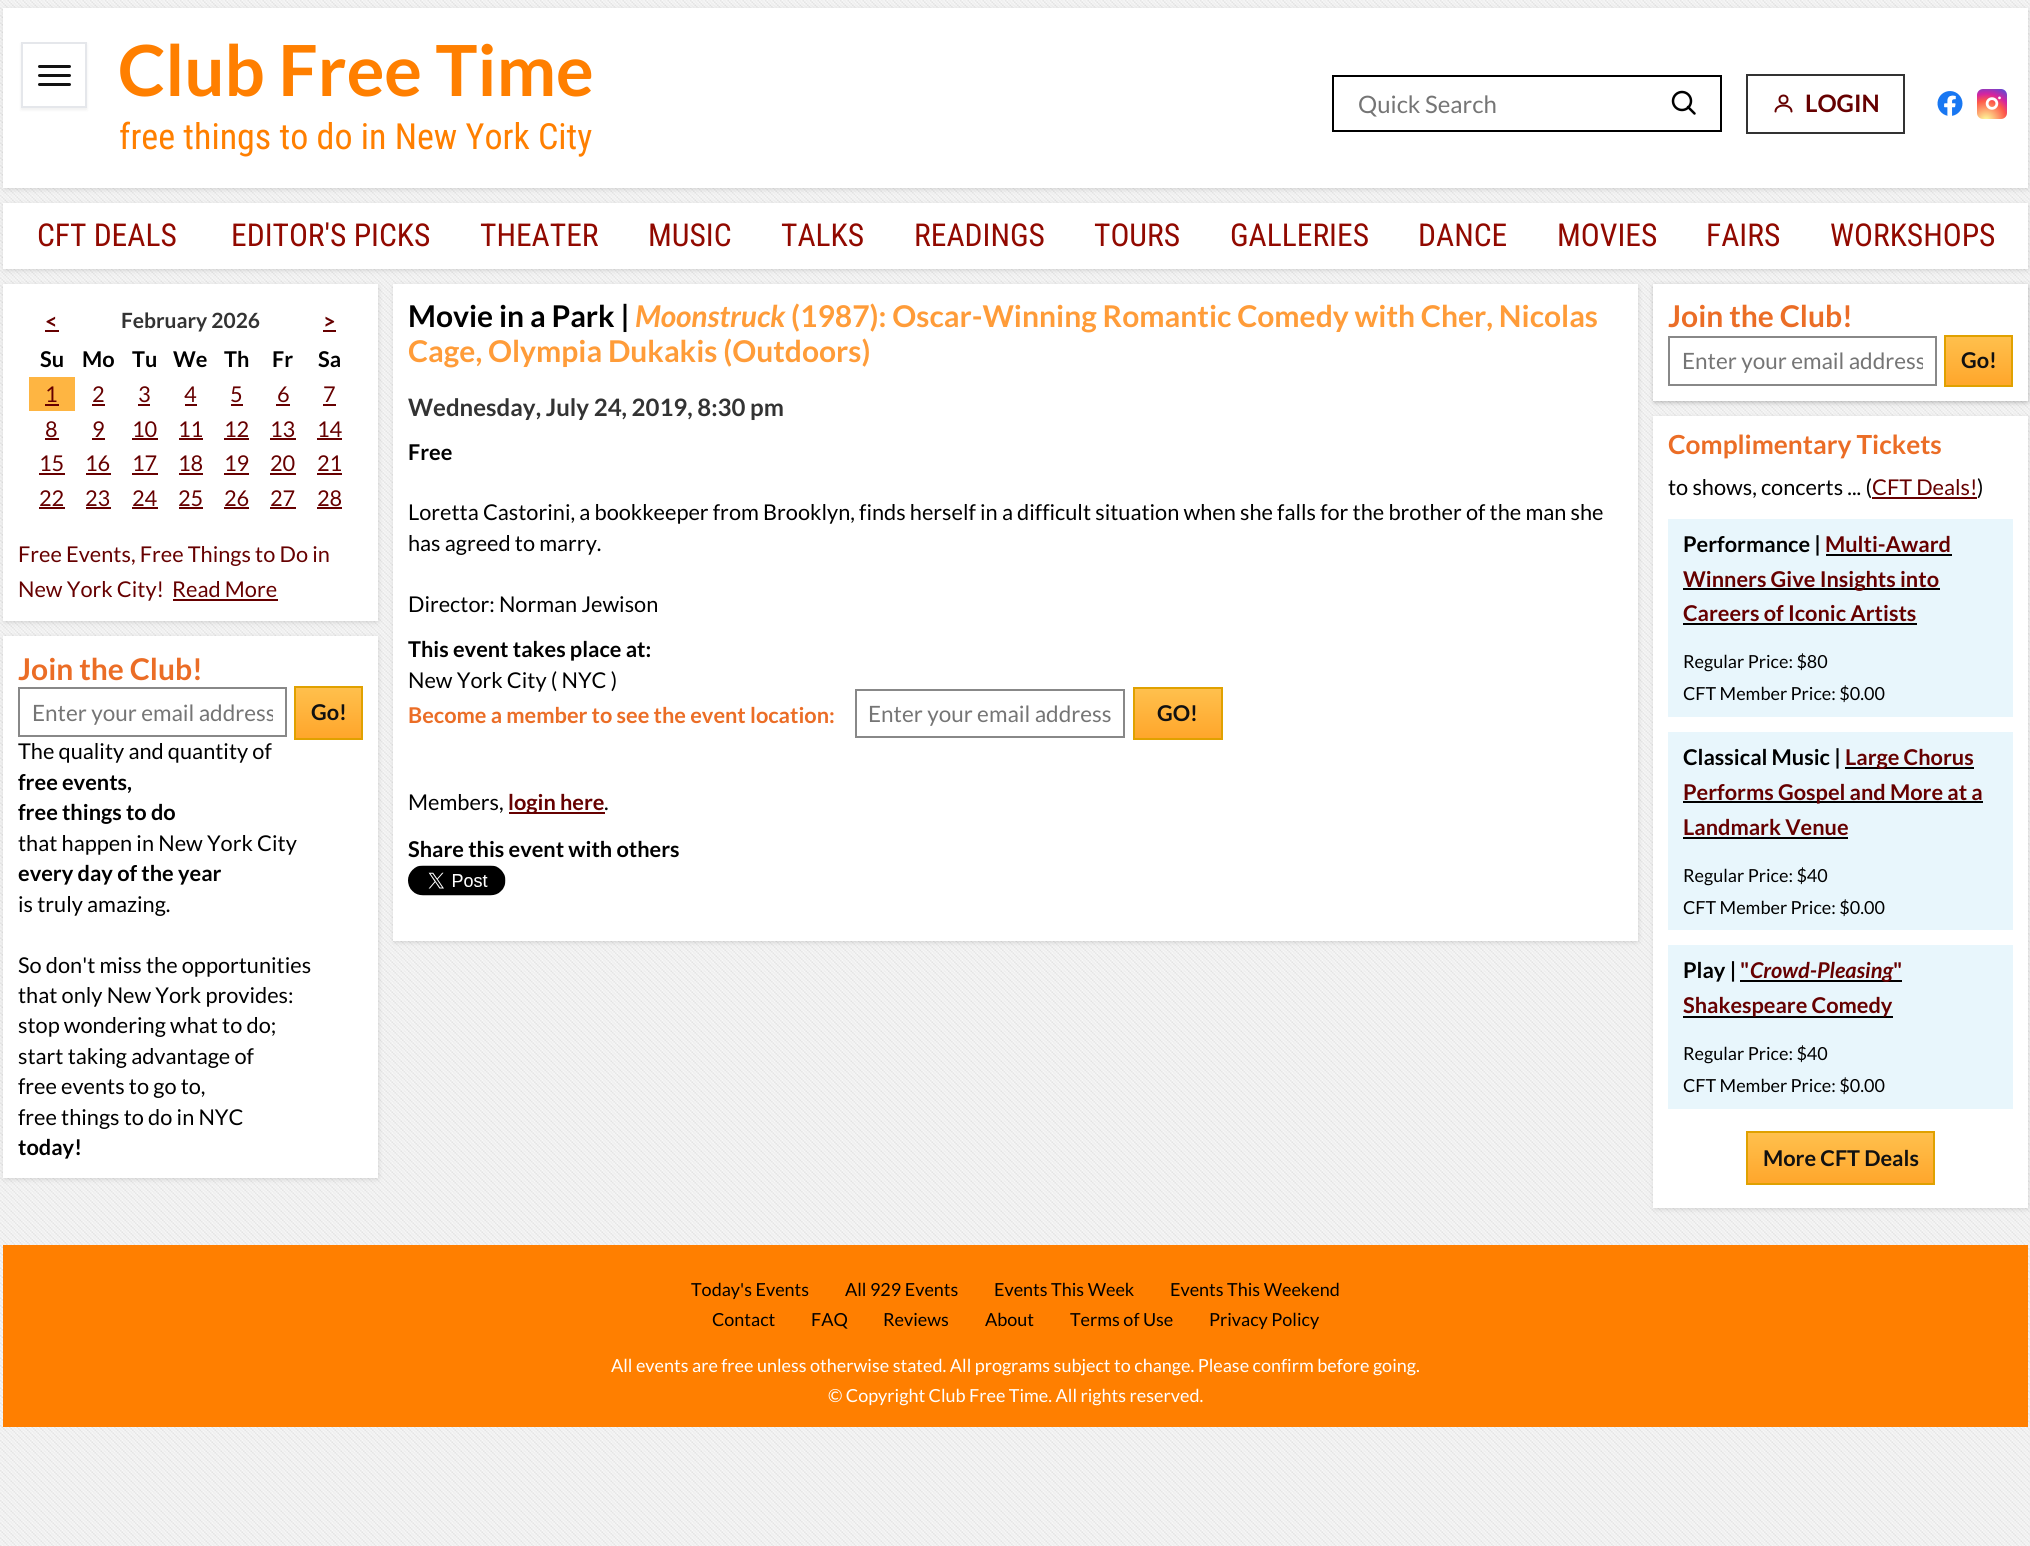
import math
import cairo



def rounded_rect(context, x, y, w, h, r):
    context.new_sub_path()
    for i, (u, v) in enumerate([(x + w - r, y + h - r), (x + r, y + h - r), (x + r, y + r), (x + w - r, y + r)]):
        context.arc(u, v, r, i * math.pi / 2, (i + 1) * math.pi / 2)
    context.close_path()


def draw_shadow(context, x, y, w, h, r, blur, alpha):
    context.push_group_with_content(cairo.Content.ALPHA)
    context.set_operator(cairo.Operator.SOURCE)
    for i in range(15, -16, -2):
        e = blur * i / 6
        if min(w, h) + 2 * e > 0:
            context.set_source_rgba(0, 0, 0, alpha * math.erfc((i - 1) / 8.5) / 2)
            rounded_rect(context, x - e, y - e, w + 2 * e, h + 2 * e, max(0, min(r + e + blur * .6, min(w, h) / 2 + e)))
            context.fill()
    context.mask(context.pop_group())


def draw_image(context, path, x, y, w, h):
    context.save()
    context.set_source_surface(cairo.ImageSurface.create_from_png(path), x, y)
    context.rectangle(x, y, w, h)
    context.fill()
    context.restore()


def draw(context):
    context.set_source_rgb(1, 1, 1)
    context.paint()
    draw_image(context, "images/1.png", 0, 0, 2030, 1546)
    context.set_source_rgb(0, 0, 0)
    draw_shadow(context, 5, 11, 2022, 177, 0, 3, 0.2)
    context.set_source_rgb(1, 1, 1)
    context.rectangle(3, 8, 2025, 180)
    context.fill()
    context.save()
    context.set_fill_rule(cairo.FillRule.EVEN_ODD)
    context.new_path()
    context.move_to(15, 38)
    context.line_to(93, 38)
    context.line_to(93, 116)
    context.line_to(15, 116)
    context.close_path()
    context.move_to(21, 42)
    context.line_to(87, 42)
    context.line_to(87, 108)
    context.line_to(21, 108)
    context.close_path()
    context.clip()
    context.set_source_rgb(0, 0, 0)
    draw_shadow(context, 21, 44, 66, 66, 0, 1.5, 0.06)
    context.restore()
    context.rectangle(22, 43, 64, 64)
    context.set_source_rgb(229 / 255, 231 / 255, 235 / 255)
    context.stroke()
    context.set_source_rgb(17 / 255, 17 / 255, 17 / 255)
    rounded_rect(context, 38, 65, 33, 3, 1.5)
    context.fill()
    rounded_rect(context, 38, 74, 33, 3, 1.5)
    context.fill()
    rounded_rect(context, 38, 83, 33, 3, 1.5)
    context.fill()
    context.rectangle(1333, 76, 388, 55)
    context.set_source_rgb(0, 0, 0)
    context.stroke()
    context.arc(1682, 101, 9, 0, 2 * math.pi)
    context.set_line_width(2.5)
    context.stroke()
    context.new_path()
    context.move_to(1688, 107)
    context.line_to(1694.5, 113.5)
    context.set_line_cap(cairo.LineCap.ROUND)
    context.set_line_join(cairo.LineJoin.ROUND)
    context.stroke()
    context.rectangle(1747, 75, 157, 58)
    context.set_source_rgb(51 / 255, 51 / 255, 51 / 255)
    context.set_line_width(2)
    context.set_line_cap(cairo.LineCap.BUTT)
    context.set_line_join(cairo.LineJoin.MITER)
    context.stroke()
    context.arc(1783.5, 99.5, 4, 0, 2 * math.pi)
    context.set_source_rgb(102 / 255, 0, 0)
    context.stroke()
    context.new_path()
    context.move_to(1775.5, 111.5)
    context.curve_to(1775.5, 103.5, 1791.5, 103.5, 1791.5, 111.5)
    context.set_line_cap(cairo.LineCap.ROUND)
    context.set_line_join(cairo.LineJoin.ROUND)
    context.stroke()
    draw_image(context, "images/2.png", 1937, 91, 26, 25)
    draw_image(context, "images/3.png", 1977, 89, 30, 30)
    context.set_source_rgb(0, 0, 0)
    draw_shadow(context, 5, 206, 2022, 63, 0, 3, 0.2)
    context.set_source_rgb(1, 1, 1)
    context.rectangle(3, 203, 2025, 66)
    context.fill()
    context.set_source_rgb(0, 0, 0)
    draw_shadow(context, 5, 287, 372, 334, 0, 3, 0.2)
    context.set_source_rgb(1, 1, 1)
    context.rectangle(3, 284, 375, 337)
    context.fill()
    context.set_source_rgb(102 / 255, 0, 0)
    context.rectangle(45, 330, 14, 2)
    context.fill()
    context.rectangle(323, 330, 13, 2)
    context.fill()
    context.set_source_rgb(254 / 255, 181 / 255, 66 / 255)
    context.rectangle(29, 377, 46, 34)
    context.fill()
    context.set_source_rgb(102 / 255, 0, 0)
    context.rectangle(45, 404, 14, 2)
    context.fill()
    context.rectangle(92, 404, 13, 2)
    context.fill()
    context.rectangle(138, 404, 12, 2)
    context.fill()
    context.rectangle(185, 404, 12, 2)
    context.fill()
    context.rectangle(231, 404, 12, 2)
    context.fill()
    context.rectangle(276, 404, 14, 2)
    context.fill()
    context.rectangle(323, 404, 13, 2)
    context.fill()
    context.rectangle(45, 438, 14, 2)
    context.fill()
    context.rectangle(92, 438, 13, 2)
    context.fill()
    context.rectangle(132, 438, 26, 2)
    context.fill()
    context.rectangle(179, 438, 24, 2)
    context.fill()
    context.rectangle(224, 438, 25, 2)
    context.fill()
    context.rectangle(270, 438, 26, 2)
    context.fill()
    context.rectangle(317, 438, 25, 2)
    context.fill()
    context.rectangle(39, 473, 26, 2)
    context.fill()
    context.rectangle(86, 473, 25, 2)
    context.fill()
    context.rectangle(132, 473, 26, 2)
    context.fill()
    context.rectangle(179, 473, 24, 2)
    context.fill()
    context.rectangle(224, 473, 25, 2)
    context.fill()
    context.rectangle(270, 473, 26, 2)
    context.fill()
    context.rectangle(317, 473, 25, 2)
    context.fill()
    context.rectangle(39, 507, 26, 2)
    context.fill()
    context.rectangle(86, 507, 25, 2)
    context.fill()
    context.rectangle(132, 507, 26, 2)
    context.fill()
    context.rectangle(179, 507, 24, 2)
    context.fill()
    context.rectangle(224, 507, 25, 2)
    context.fill()
    context.rectangle(270, 507, 26, 2)
    context.fill()
    context.rectangle(317, 507, 25, 2)
    context.fill()
    context.rectangle(173, 599, 105, 2)
    context.fill()
    context.set_source_rgb(0, 0, 0)
    draw_shadow(context, 5, 639, 372, 539, 0, 3, 0.2)
    context.set_source_rgb(1, 1, 1)
    context.rectangle(3, 636, 375, 542)
    context.fill()
    context.rectangle(19, 688, 267, 48)
    context.set_source_rgb(136 / 255, 136 / 255, 136 / 255)
    context.set_line_cap(cairo.LineCap.BUTT)
    context.set_line_join(cairo.LineJoin.MITER)
    context.stroke()
    gradient = cairo.LinearGradient(329, 687, 329, 738)
    gradient.add_color_stop_rgba(0, 1, 192 / 255, 77 / 255, 1)
    gradient.add_color_stop_rgba(1, 1, 166 / 255, 43 / 255, 1)
    context.set_source(gradient)
    context.rectangle(296, 688, 65, 50)
    context.fill()
    context.rectangle(295, 687, 67, 52)
    context.set_source_rgb(224 / 255, 161 / 255, 0)
    context.stroke()
    context.set_source_rgb(0, 0, 0)
    draw_shadow(context, 395, 287, 1242, 654, 0, 3, 0.2)
    context.set_source_rgb(1, 1, 1)
    context.rectangle(393, 284, 1245, 657)
    context.fill()
    context.rectangle(856, 690, 268, 47)
    context.set_source_rgb(136 / 255, 136 / 255, 136 / 255)
    context.stroke()
    gradient = cairo.LinearGradient(1178, 689, 1178, 738)
    gradient.add_color_stop_rgba(0, 1, 192 / 255, 77 / 255, 1)
    gradient.add_color_stop_rgba(1, 1, 166 / 255, 43 / 255, 1)
    context.set_source(gradient)
    context.rectangle(1135, 689, 86, 49)
    context.fill()
    context.rectangle(1134, 688, 88, 51)
    context.set_source_rgb(224 / 255, 161 / 255, 0)
    context.stroke()
    context.set_source_rgb(102 / 255, 0, 0)
    context.rectangle(509, 812, 96, 2)
    context.fill()
    draw_image(context, "images/4.png", 408, 865, 98, 31)
    context.set_source_rgb(0, 0, 0)
    draw_shadow(context, 1655, 287, 372, 114, 0, 3, 0.2)
    draw_shadow(context, 1655, 287, 372, 114, 0, 3, 0.2)
    context.set_source_rgb(1, 1, 1)
    context.rectangle(1653, 284, 375, 117)
    context.fill()
    context.rectangle(1669, 337, 267, 48)
    context.set_source_rgb(136 / 255, 136 / 255, 136 / 255)
    context.stroke()
    gradient = cairo.LinearGradient(1979, 336, 1979, 386)
    gradient.add_color_stop_rgba(0, 1, 192 / 255, 77 / 255, 1)
    gradient.add_color_stop_rgba(1, 1, 166 / 255, 43 / 255, 1)
    context.set_source(gradient)
    context.rectangle(1946, 337, 65, 48)
    context.fill()
    context.rectangle(1945, 336, 67, 50)
    context.set_source_rgb(224 / 255, 161 / 255, 0)
    context.stroke()
    context.set_source_rgb(0, 0, 0)
    draw_shadow(context, 1655, 419, 372, 789, 0, 3, 0.2)
    context.set_source_rgb(1, 1, 1)
    context.rectangle(1653, 416, 375, 792)
    context.fill()
    context.set_source_rgb(102 / 255, 0, 0)
    context.rectangle(1872, 497, 105, 2)
    context.fill()
    context.set_source_rgb(232 / 255, 246 / 255, 252 / 255)
    context.rectangle(1668, 519, 345, 198)
    context.fill()
    context.set_source_rgb(0, 0, 0)
    context.rectangle(1826, 554, 126, 2)
    context.fill()
    context.rectangle(1683, 588, 257, 2)
    context.fill()
    context.rectangle(1683, 623, 234, 2)
    context.fill()
    context.set_source_rgb(232 / 255, 246 / 255, 252 / 255)
    context.rectangle(1668, 732, 345, 198)
    context.fill()
    context.set_source_rgb(0, 0, 0)
    context.rectangle(1845, 767, 129, 2)
    context.fill()
    context.rectangle(1683, 801, 300, 2)
    context.fill()
    context.rectangle(1683, 837, 165, 2)
    context.fill()
    context.set_source_rgb(232 / 255, 246 / 255, 252 / 255)
    context.rectangle(1668, 945, 345, 164)
    context.fill()
    context.set_source_rgb(0, 0, 0)
    context.rectangle(1740, 980, 153, 2)
    context.fill()
    context.rectangle(1683, 1016, 210, 2)
    context.fill()
    gradient = cairo.LinearGradient(1841, 1133, 1841, 1184)
    gradient.add_color_stop_rgba(0, 1, 192 / 255, 77 / 255, 1)
    gradient.add_color_stop_rgba(1, 1, 166 / 255, 43 / 255, 1)
    context.set_source(gradient)
    context.rectangle(1748, 1133, 185, 50)
    context.fill()
    context.rectangle(1747, 1132, 187, 52)
    context.set_source_rgb(224 / 255, 161 / 255, 0)
    context.stroke()
    context.set_source_rgb(1, 127 / 255, 0)
    context.rectangle(3, 1245, 2025, 182)
    context.fill()
    context.select_font_face("Lato", cairo.FontSlant.NORMAL, cairo.FontWeight.BOLD)
    context.set_font_size(70.5)
    context.move_to(118, 96)
    context.show_text("Club Free Time")
    context.select_font_face("Roboto Condensed")
    context.set_font_size(36)
    context.move_to(119, 149)
    context.show_text("free things to do in New York City")
    context.select_font_face("Lato")
    context.set_font_size(24)
    context.set_source_rgb(117 / 255, 117 / 255, 117 / 255)
    context.move_to(1358, 113)
    context.show_text("Quick Search")
    context.select_font_face("Lato", cairo.FontSlant.NORMAL, cairo.FontWeight.BOLD)
    context.set_source_rgb(102 / 255, 0, 0)
    context.move_to(1805, 112)
    context.show_text("LOGIN")
    context.select_font_face("Roboto Condensed")
    context.set_font_size(31.5)
    context.set_source_rgb(145 / 255, 9 / 255, 0)
    context.move_to(37, 246)
    context.show_text("CFT DEALS")
    context.move_to(231, 246)
    context.show_text("EDITOR'S PICKS")
    context.move_to(480, 246)
    context.show_text("THEATER")
    context.move_to(648, 246)
    context.show_text("MUSIC")
    context.move_to(781, 246)
    context.show_text("TALKS")
    context.move_to(914, 246)
    context.show_text("READINGS")
    context.move_to(1094, 246)
    context.show_text("TOURS")
    context.move_to(1230, 246)
    context.show_text("GALLERIES")
    context.move_to(1418, 246)
    context.show_text("DANCE")
    context.move_to(1557, 246)
    context.show_text("MOVIES")
    context.move_to(1706, 246)
    context.show_text("FAIRS")
    context.move_to(1830, 246)
    context.show_text("WORKSHOPS")
    context.select_font_face("Lato", cairo.FontSlant.NORMAL, cairo.FontWeight.BOLD)
    context.set_font_size(21.75)
    context.set_source_rgb(102 / 255, 0, 0)
    context.move_to(45, 329)
    context.show_text("<")
    context.set_font_size(21)
    context.set_source_rgb(51 / 255, 51 / 255, 51 / 255)
    context.move_to(121, 328)
    context.show_text("February 2026")
    context.set_font_size(21.75)
    context.set_source_rgb(102 / 255, 0, 0)
    context.move_to(323, 329)
    context.show_text(">")
    context.set_source_rgb(0, 0, 0)
    context.move_to(40, 367)
    context.show_text("Su")
    context.move_to(82, 367)
    context.show_text("Mo")
    context.move_to(132, 367)
    context.show_text("Tu")
    context.move_to(173, 367)
    context.show_text("We")
    context.move_to(224, 367)
    context.show_text("Th")
    context.move_to(272, 367)
    context.show_text("Fr")
    context.move_to(318, 367)
    context.show_text("Sa")
    context.select_font_face("Lato")
    context.set_source_rgb(102 / 255, 0, 0)
    context.move_to(45, 402)
    context.show_text("1")
    context.move_to(92, 402)
    context.show_text("2")
    context.move_to(138, 402)
    context.show_text("3")
    context.move_to(184, 402)
    context.show_text("4")
    context.move_to(230, 402)
    context.show_text("5")
    context.move_to(277, 402)
    context.show_text("6")
    context.move_to(323, 402)
    context.show_text("7")
    context.move_to(45, 437)
    context.show_text("8")
    context.move_to(92, 437)
    context.show_text("9")
    context.move_to(132, 437)
    context.show_text("10")
    context.move_to(178, 437)
    context.show_text("11")
    context.move_to(224, 437)
    context.show_text("12")
    context.move_to(270, 437)
    context.show_text("13")
    context.move_to(317, 437)
    context.show_text("14")
    context.move_to(39, 471)
    context.show_text("15")
    context.move_to(85, 471)
    context.show_text("16")
    context.move_to(132, 471)
    context.show_text("17")
    context.move_to(178, 471)
    context.show_text("18")
    context.move_to(224, 471)
    context.show_text("19")
    context.move_to(270, 471)
    context.show_text("20")
    context.move_to(317, 471)
    context.show_text("21")
    context.move_to(39, 506)
    context.show_text("22")
    context.move_to(85, 506)
    context.show_text("23")
    context.move_to(132, 506)
    context.show_text("24")
    context.move_to(178, 506)
    context.show_text("25")
    context.move_to(224, 506)
    context.show_text("26")
    context.move_to(270, 506)
    context.show_text("27")
    context.move_to(317, 506)
    context.show_text("28")
    context.move_to(18, 562)
    context.show_text("Free Events, Free Things to Do in")
    context.move_to(18, 597)
    context.show_text("New York City!")
    context.move_to(172, 597)
    context.show_text("Read More")
    context.select_font_face("Lato", cairo.FontSlant.NORMAL, cairo.FontWeight.BOLD)
    context.set_font_size(30)
    context.set_source_rgb(235 / 255, 109 / 255, 38 / 255)
    context.move_to(18, 680)
    context.show_text("Join the Club!")
    context.save()
    context.rectangle(32, 699, 241, 27)
    context.clip()
    context.select_font_face("Lato")
    context.set_font_size(22.5)
    context.set_source_rgb(117 / 255, 117 / 255, 117 / 255)
    context.move_to(32, 721)
    context.show_text("Enter your email address")
    context.restore()
    context.set_font_size(21.75)
    context.set_source_rgb(17 / 255, 17 / 255, 17 / 255)
    context.move_to(311, 720)
    context.show_text("Go!")
    context.select_font_face("Lato")
    context.set_source_rgb(0, 0, 0)
    context.move_to(18, 759)
    context.show_text("The quality and quantity of")
    context.select_font_face("Lato", cairo.FontSlant.NORMAL, cairo.FontWeight.BOLD)
    context.move_to(18, 790)
    context.show_text("free events,")
    context.move_to(18, 820)
    context.show_text("free things to do")
    context.select_font_face("Lato")
    context.move_to(18, 851)
    context.show_text("that happen in New York City")
    context.select_font_face("Lato", cairo.FontSlant.NORMAL, cairo.FontWeight.BOLD)
    context.move_to(18, 881)
    context.show_text("every day of the year")
    context.select_font_face("Lato")
    context.move_to(18, 912)
    context.show_text("is truly amazing.")
    context.move_to(18, 973)
    context.show_text("So don't miss the opportunities")
    context.move_to(18, 1003)
    context.show_text("that only New York provides:")
    context.move_to(18, 1033)
    context.show_text("stop wondering what to do;")
    context.move_to(18, 1064)
    context.show_text("start taking advantage of")
    context.move_to(18, 1094)
    context.show_text("free events to go to,")
    context.move_to(18, 1125)
    context.show_text("free things to do in NYC")
    context.select_font_face("Lato", cairo.FontSlant.NORMAL, cairo.FontWeight.BOLD)
    context.move_to(18, 1155)
    context.show_text("today!")
    context.set_font_size(30)
    context.move_to(408, 327)
    context.show_text("Movie in a Park |")
    context.select_font_face("Lato", cairo.FontSlant.ITALIC, cairo.FontWeight.BOLD)
    context.set_source_rgb(1, 156 / 255, 57 / 255)
    context.move_to(635, 327)
    context.show_text("Moonstruck")
    context.select_font_face("Lato", cairo.FontSlant.NORMAL, cairo.FontWeight.BOLD)
    context.move_to(791, 327)
    context.show_text("(1987): Oscar-Winning Romantic Comedy with Cher, Nicolas")
    context.move_to(408, 362)
    context.show_text("Cage, Olympia Dukakis (Outdoors)")
    context.set_font_size(24)
    context.set_source_rgb(51 / 255, 51 / 255, 51 / 255)
    context.move_to(408, 416)
    context.show_text("Wednesday, July 24, 2019, 8:30 pm")
    context.set_font_size(21.75)
    context.set_source_rgb(0, 0, 0)
    context.move_to(408, 460)
    context.show_text("Free")
    context.select_font_face("Lato")
    context.move_to(408, 520)
    context.show_text("Loretta Castorini, a bookkeeper from Brooklyn, finds herself in a difficult situation when she falls for the brother of the man she")
    context.move_to(408, 551)
    context.show_text("has agreed to marry.")
    context.move_to(408, 612)
    context.show_text("Director: Norman Jewison")
    context.select_font_face("Lato", cairo.FontSlant.NORMAL, cairo.FontWeight.BOLD)
    context.move_to(408, 657)
    context.show_text("This event takes place at:")
    context.select_font_face("Lato")
    context.move_to(408, 688)
    context.show_text("New York City ( NYC )")
    context.select_font_face("Lato", cairo.FontSlant.NORMAL, cairo.FontWeight.BOLD)
    context.set_source_rgb(235 / 255, 109 / 255, 38 / 255)
    context.move_to(408, 723)
    context.show_text("Become a member to see the event location:")
    context.select_font_face("Lato")
    context.set_font_size(22.5)
    context.set_source_rgb(117 / 255, 117 / 255, 117 / 255)
    context.move_to(868, 722)
    context.show_text("Enter your email address")
    context.select_font_face("Lato", cairo.FontSlant.NORMAL, cairo.FontWeight.BOLD)
    context.set_font_size(21.75)
    context.set_source_rgb(17 / 255, 17 / 255, 17 / 255)
    context.move_to(1157, 721)
    context.show_text("GO!")
    context.select_font_face("Lato")
    context.set_source_rgb(0, 0, 0)
    context.move_to(408, 810)
    context.show_text("Members,")
    context.select_font_face("Lato", cairo.FontSlant.NORMAL, cairo.FontWeight.BOLD)
    context.set_source_rgb(102 / 255, 0, 0)
    context.move_to(508, 810)
    context.show_text("login here")
    context.select_font_face("Lato")
    context.set_source_rgb(0, 0, 0)
    context.move_to(604, 810)
    context.show_text(".")
    context.select_font_face("Lato", cairo.FontSlant.NORMAL, cairo.FontWeight.BOLD)
    context.move_to(408, 857)
    context.show_text("Share this event with others")
    context.set_font_size(30)
    context.set_source_rgb(235 / 255, 109 / 255, 38 / 255)
    context.move_to(1668, 327)
    context.show_text("Join the Club!")
    context.save()
    context.rectangle(1682, 347, 241, 27)
    context.clip()
    context.select_font_face("Lato")
    context.set_font_size(22.5)
    context.set_source_rgb(117 / 255, 117 / 255, 117 / 255)
    context.move_to(1682, 369)
    context.show_text("Enter your email address")
    context.restore()
    context.set_font_size(21.75)
    context.set_source_rgb(17 / 255, 17 / 255, 17 / 255)
    context.move_to(1961, 368)
    context.show_text("Go!")
    context.set_font_size(26.25)
    context.set_source_rgb(235 / 255, 109 / 255, 38 / 255)
    context.move_to(1668, 454)
    context.show_text("Complimentary Tickets")
    context.select_font_face("Lato")
    context.set_font_size(21.75)
    context.set_source_rgb(0, 0, 0)
    context.move_to(1668, 495)
    context.show_text("to shows, concerts ... (")
    context.set_source_rgb(102 / 255, 0, 0)
    context.move_to(1872, 495)
    context.show_text("CFT Deals!")
    context.set_source_rgb(0, 0, 0)
    context.move_to(1977, 495)
    context.show_text(")")
    context.select_font_face("Lato", cairo.FontSlant.NORMAL, cairo.FontWeight.BOLD)
    context.move_to(1683, 552)
    context.show_text("Performance |")
    context.set_source_rgb(102 / 255, 0, 0)
    context.move_to(1825, 552)
    context.show_text("Multi-Award")
    context.move_to(1683, 587)
    context.show_text("Winners Give Insights into")
    context.move_to(1683, 621)
    context.show_text("Careers of Iconic Artists")
    context.select_font_face("Lato")
    context.set_font_size(18)
    context.set_source_rgb(0, 0, 0)
    context.move_to(1683, 668)
    context.show_text("Regular Price: $80")
    context.move_to(1683, 700)
    context.show_text("CFT Member Price: $0.00")
    context.select_font_face("Lato", cairo.FontSlant.NORMAL, cairo.FontWeight.BOLD)
    context.set_font_size(21.75)
    context.move_to(1683, 765)
    context.show_text("Classical Music |")
    context.set_source_rgb(102 / 255, 0, 0)
    context.move_to(1845, 765)
    context.show_text("Large Chorus")
    context.move_to(1683, 800)
    context.show_text("Performs Gospel and More at a")
    context.move_to(1683, 835)
    context.show_text("Landmark Venue")
    context.select_font_face("Lato")
    context.set_font_size(18)
    context.set_source_rgb(0, 0, 0)
    context.move_to(1683, 882)
    context.show_text("Regular Price: $40")
    context.move_to(1683, 914)
    context.show_text("CFT Member Price: $0.00")
    context.select_font_face("Lato", cairo.FontSlant.NORMAL, cairo.FontWeight.BOLD)
    context.set_font_size(21.75)
    context.move_to(1683, 978)
    context.show_text("Play |")
    context.set_source_rgb(102 / 255, 0, 0)
    context.move_to(1740, 978)
    context.show_text("\"")
    context.select_font_face("Lato", cairo.FontSlant.ITALIC, cairo.FontWeight.BOLD)
    context.move_to(1750, 978)
    context.show_text("Crowd-Pleasing")
    context.set_source_rgb(0, 0, 0)
    context.rectangle(1893, 980, 9, 2)
    context.fill()
    context.select_font_face("Lato", cairo.FontSlant.NORMAL, cairo.FontWeight.BOLD)
    context.set_source_rgb(102 / 255, 0, 0)
    context.move_to(1893, 978)
    context.show_text("\"")
    context.move_to(1683, 1013)
    context.show_text("Shakespeare Comedy")
    context.select_font_face("Lato")
    context.set_font_size(18)
    context.set_source_rgb(0, 0, 0)
    context.move_to(1683, 1060)
    context.show_text("Regular Price: $40")
    context.move_to(1683, 1092)
    context.show_text("CFT Member Price: $0.00")
    context.select_font_face("Lato", cairo.FontSlant.NORMAL, cairo.FontWeight.BOLD)
    context.set_font_size(21.75)
    context.set_source_rgb(17 / 255, 17 / 255, 17 / 255)
    context.move_to(1763, 1166)
    context.show_text("More CFT Deals")
    context.select_font_face("Lato")
    context.set_font_size(18)
    context.set_source_rgb(0, 0, 0)
    context.move_to(691, 1296)
    context.show_text("Today's Events")
    context.move_to(845, 1296)
    context.show_text("All 929 Events")
    context.move_to(994, 1296)
    context.show_text("Events This Week")
    context.move_to(1170, 1296)
    context.show_text("Events This Weekend")
    context.move_to(712, 1326)
    context.show_text("Contact")
    context.move_to(811, 1326)
    context.show_text("FAQ")
    context.move_to(883, 1326)
    context.show_text("Reviews")
    context.move_to(985, 1326)
    context.show_text("About")
    context.move_to(1070, 1326)
    context.show_text("Terms of Use")
    context.move_to(1209, 1326)
    context.show_text("Privacy Policy")
    context.set_source_rgb(1, 1, 1)
    context.move_to(611, 1372)
    context.show_text("All events are free unless otherwise stated. All programs subject to change. Please confirm before going.")
    context.move_to(828, 1402)
    context.show_text("© Copyright Club Free Time. All rights reserved.")


surface = cairo.ImageSurface(cairo.Format.RGB24, 2030, 1546)
context = cairo.Context(surface)
options = cairo.FontOptions()
options.set_hint_metrics(cairo.HintMetrics.OFF)
options.set_hint_style(cairo.HintStyle.NONE)
context.set_font_options(options)
context.set_miter_limit(4)
draw(context)
surface.write_to_png("out.png")
